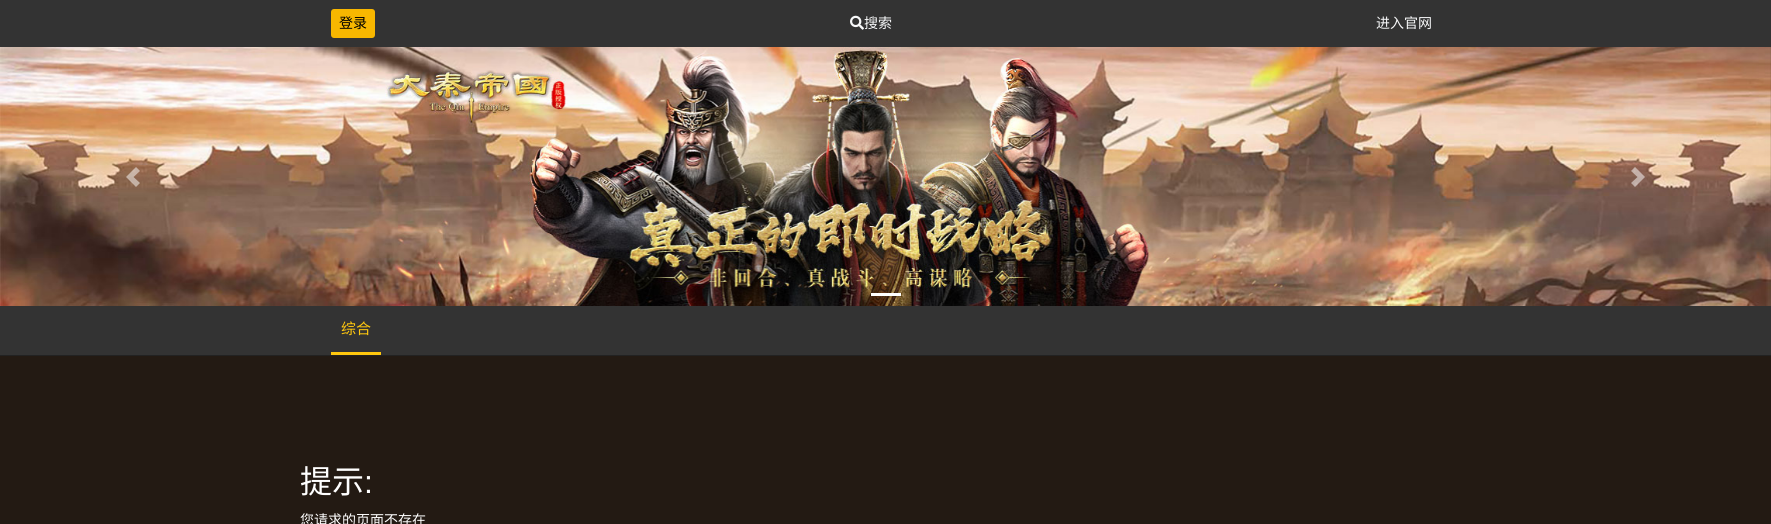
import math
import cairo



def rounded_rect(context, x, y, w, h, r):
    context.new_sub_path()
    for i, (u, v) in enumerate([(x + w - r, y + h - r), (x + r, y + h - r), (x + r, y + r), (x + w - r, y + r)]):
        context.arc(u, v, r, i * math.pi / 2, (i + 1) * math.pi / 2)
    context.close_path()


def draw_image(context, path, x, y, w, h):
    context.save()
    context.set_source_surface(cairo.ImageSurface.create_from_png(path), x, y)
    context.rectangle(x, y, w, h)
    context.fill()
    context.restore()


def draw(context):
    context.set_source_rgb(35 / 255, 26 / 255, 19 / 255)
    context.paint()
    context.set_source_rgb(51 / 255, 51 / 255, 51 / 255)
    context.rectangle(0, 0, 1771, 47)
    context.fill()
    context.set_source_rgb(248 / 255, 183 / 255, 0)
    rounded_rect(context, 331, 9, 44, 29, 3)
    context.fill()
    draw_image(context, "images/1.png", 850, 15, 14, 15)
    context.rectangle(-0.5, 305.5, 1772, 50)
    context.set_source_rgb(34 / 255, 34 / 255, 34 / 255)
    context.set_line_width(1)
    context.stroke()
    draw_image(context, "images/2.png", 0, 47, 1771, 259)
    context.set_source_rgba(1, 1, 1, 0.5)
    context.new_path()
    context.move_to(136, 167)
    context.line_to(126, 177)
    context.line_to(136, 187)
    context.line_to(140, 183)
    context.line_to(133.5, 177)
    context.line_to(140, 171)
    context.close_path()
    context.fill()
    context.new_path()
    context.move_to(1635, 167)
    context.line_to(1631, 171)
    context.line_to(1637.5, 177)
    context.line_to(1631, 183)
    context.line_to(1635, 187)
    context.line_to(1645, 177)
    context.close_path()
    context.fill()
    context.set_source_rgb(1, 1, 1)
    context.rectangle(871, 293, 30, 3)
    context.fill()
    context.set_source_rgb(51 / 255, 51 / 255, 51 / 255)
    context.rectangle(0, 306, 1771, 49)
    context.fill()
    context.set_source_rgb(1, 199 / 255, 14 / 255)
    context.rectangle(331, 352, 50, 3)
    context.fill()
    context.select_font_face("Noto Sans CJK SC")
    context.set_font_size(14)
    context.set_source_rgb(0, 0, 0)
    context.move_to(339, 28)
    context.show_text("登录")
    context.set_source_rgb(248 / 255, 249 / 255, 250 / 255)
    context.move_to(864, 28)
    context.show_text("搜索")
    context.move_to(1376, 28)
    context.show_text("进入官网")
    context.set_font_size(15)
    context.set_source_rgb(1, 199 / 255, 14 / 255)
    context.move_to(341, 334)
    context.show_text("综合")
    context.set_font_size(32)
    context.set_source_rgb(1, 1, 1)
    context.move_to(300, 493)
    context.show_text("提示")
    context.select_font_face("Liberation Sans")
    context.move_to(364, 493)
    context.show_text(":")
    context.select_font_face("Noto Sans CJK SC")
    context.set_font_size(14)
    context.move_to(300, 525)
    context.show_text("您请求的页面不存在")


surface = cairo.ImageSurface(cairo.Format.RGB24, 1771, 524)
context = cairo.Context(surface)
options = cairo.FontOptions()
options.set_hint_metrics(cairo.HintMetrics.OFF)
options.set_hint_style(cairo.HintStyle.NONE)
context.set_font_options(options)
context.set_miter_limit(4)
draw(context)
surface.write_to_png("out.png")
